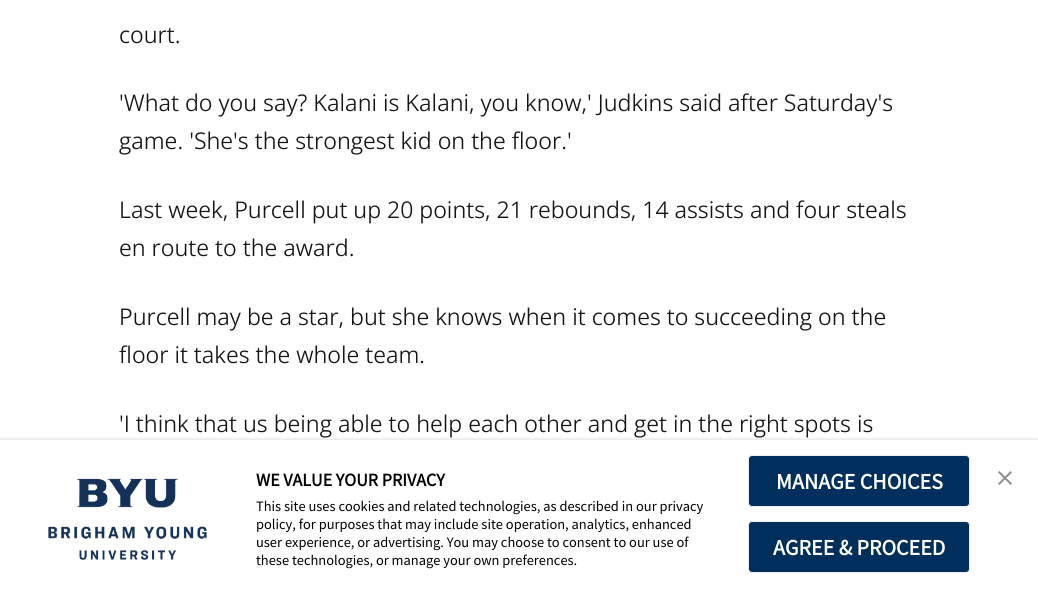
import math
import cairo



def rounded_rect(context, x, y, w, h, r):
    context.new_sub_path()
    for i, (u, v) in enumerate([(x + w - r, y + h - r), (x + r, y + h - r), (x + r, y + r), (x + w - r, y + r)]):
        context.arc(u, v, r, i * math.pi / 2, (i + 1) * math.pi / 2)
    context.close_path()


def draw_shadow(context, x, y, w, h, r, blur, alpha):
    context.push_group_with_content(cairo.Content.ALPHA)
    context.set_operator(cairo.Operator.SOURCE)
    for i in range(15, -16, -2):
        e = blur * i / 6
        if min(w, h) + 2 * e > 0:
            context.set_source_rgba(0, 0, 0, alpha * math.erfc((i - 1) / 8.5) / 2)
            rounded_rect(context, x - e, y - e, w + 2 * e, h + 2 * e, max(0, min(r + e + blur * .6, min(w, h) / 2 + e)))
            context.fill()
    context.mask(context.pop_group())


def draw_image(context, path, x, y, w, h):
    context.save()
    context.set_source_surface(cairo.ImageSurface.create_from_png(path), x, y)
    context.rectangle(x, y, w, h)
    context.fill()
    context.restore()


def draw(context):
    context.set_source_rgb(1, 1, 1)
    context.paint()
    context.set_source_rgb(0, 0, 0)
    draw_shadow(context, 0, 440, 1038, 164, 0, 2, 0.2)
    context.set_source_rgb(1, 1, 1)
    context.rectangle(0, 440, 1038, 164)
    context.fill()
    draw_image(context, "images/1.png", 48, 478, 159, 82)
    draw_image(context, "images/2.png", 998, 471, 14, 14)
    context.set_source_rgb(0, 46 / 255, 93 / 255)
    rounded_rect(context, 748.5, 455.5, 221, 51, 3.5)
    context.fill_preserve()
    context.set_source_rgb(238 / 255, 238 / 255, 238 / 255)
    context.set_line_width(1)
    context.stroke()
    context.set_source_rgb(0, 46 / 255, 93 / 255)
    rounded_rect(context, 748.5, 521.5, 221, 51, 3.5)
    context.fill_preserve()
    context.set_source_rgb(238 / 255, 238 / 255, 238 / 255)
    context.stroke()
    context.select_font_face("Open Sans")
    context.set_font_size(23)
    context.set_source_rgb(20 / 255, 20 / 255, 20 / 255)
    context.move_to(119, 43)
    context.show_text("court.")
    context.move_to(119, 111)
    context.show_text("'What do you say? Kalani is Kalani, you know,' Judkins said after Saturday's")
    context.move_to(119, 149)
    context.show_text("game. 'She's the strongest kid on the floor.'")
    context.move_to(119, 218)
    context.show_text("Last week, Purcell put up 20 points, 21 rebounds, 14 assists and four steals")
    context.move_to(119, 256)
    context.show_text("en route to the award.")
    context.move_to(119, 325)
    context.show_text("Purcell may be a star, but she knows when it comes to succeeding on the")
    context.move_to(119, 363)
    context.show_text("floor it takes the whole team.")
    context.move_to(119, 432)
    context.show_text("'I think that us being able to help each other and get in the right spots is")
    context.select_font_face("Source Sans Pro", cairo.FontSlant.NORMAL, cairo.FontWeight.BOLD)
    context.set_font_size(18)
    context.set_source_rgb(0, 0, 0)
    context.move_to(256, 486)
    context.show_text("WE VALUE YOUR PRIVACY")
    context.select_font_face("Source Sans Pro")
    context.set_font_size(14.4)
    context.move_to(256, 511)
    context.show_text("This site uses cookies and related technologies, as described in our privacy")
    context.move_to(256, 529)
    context.show_text("policy, for purposes that may include site operation, analytics, enhanced")
    context.move_to(256, 547)
    context.show_text("user experience, or advertising. You may choose to consent to our use of")
    context.move_to(256, 565)
    context.show_text("these technologies, or manage your own preferences.")
    context.select_font_face("Source Sans Pro", cairo.FontSlant.NORMAL, cairo.FontWeight.BOLD)
    context.set_font_size(22)
    context.set_source_rgb(1, 1, 1)
    context.move_to(776, 489)
    context.show_text("MANAGE CHOICES")
    context.move_to(773, 555)
    context.show_text("AGREE & PROCEED")


surface = cairo.ImageSurface(cairo.Format.RGB24, 1038, 604)
context = cairo.Context(surface)
options = cairo.FontOptions()
options.set_hint_metrics(cairo.HintMetrics.OFF)
options.set_hint_style(cairo.HintStyle.NONE)
context.set_font_options(options)
context.set_miter_limit(4)
draw(context)
surface.write_to_png("out.png")
